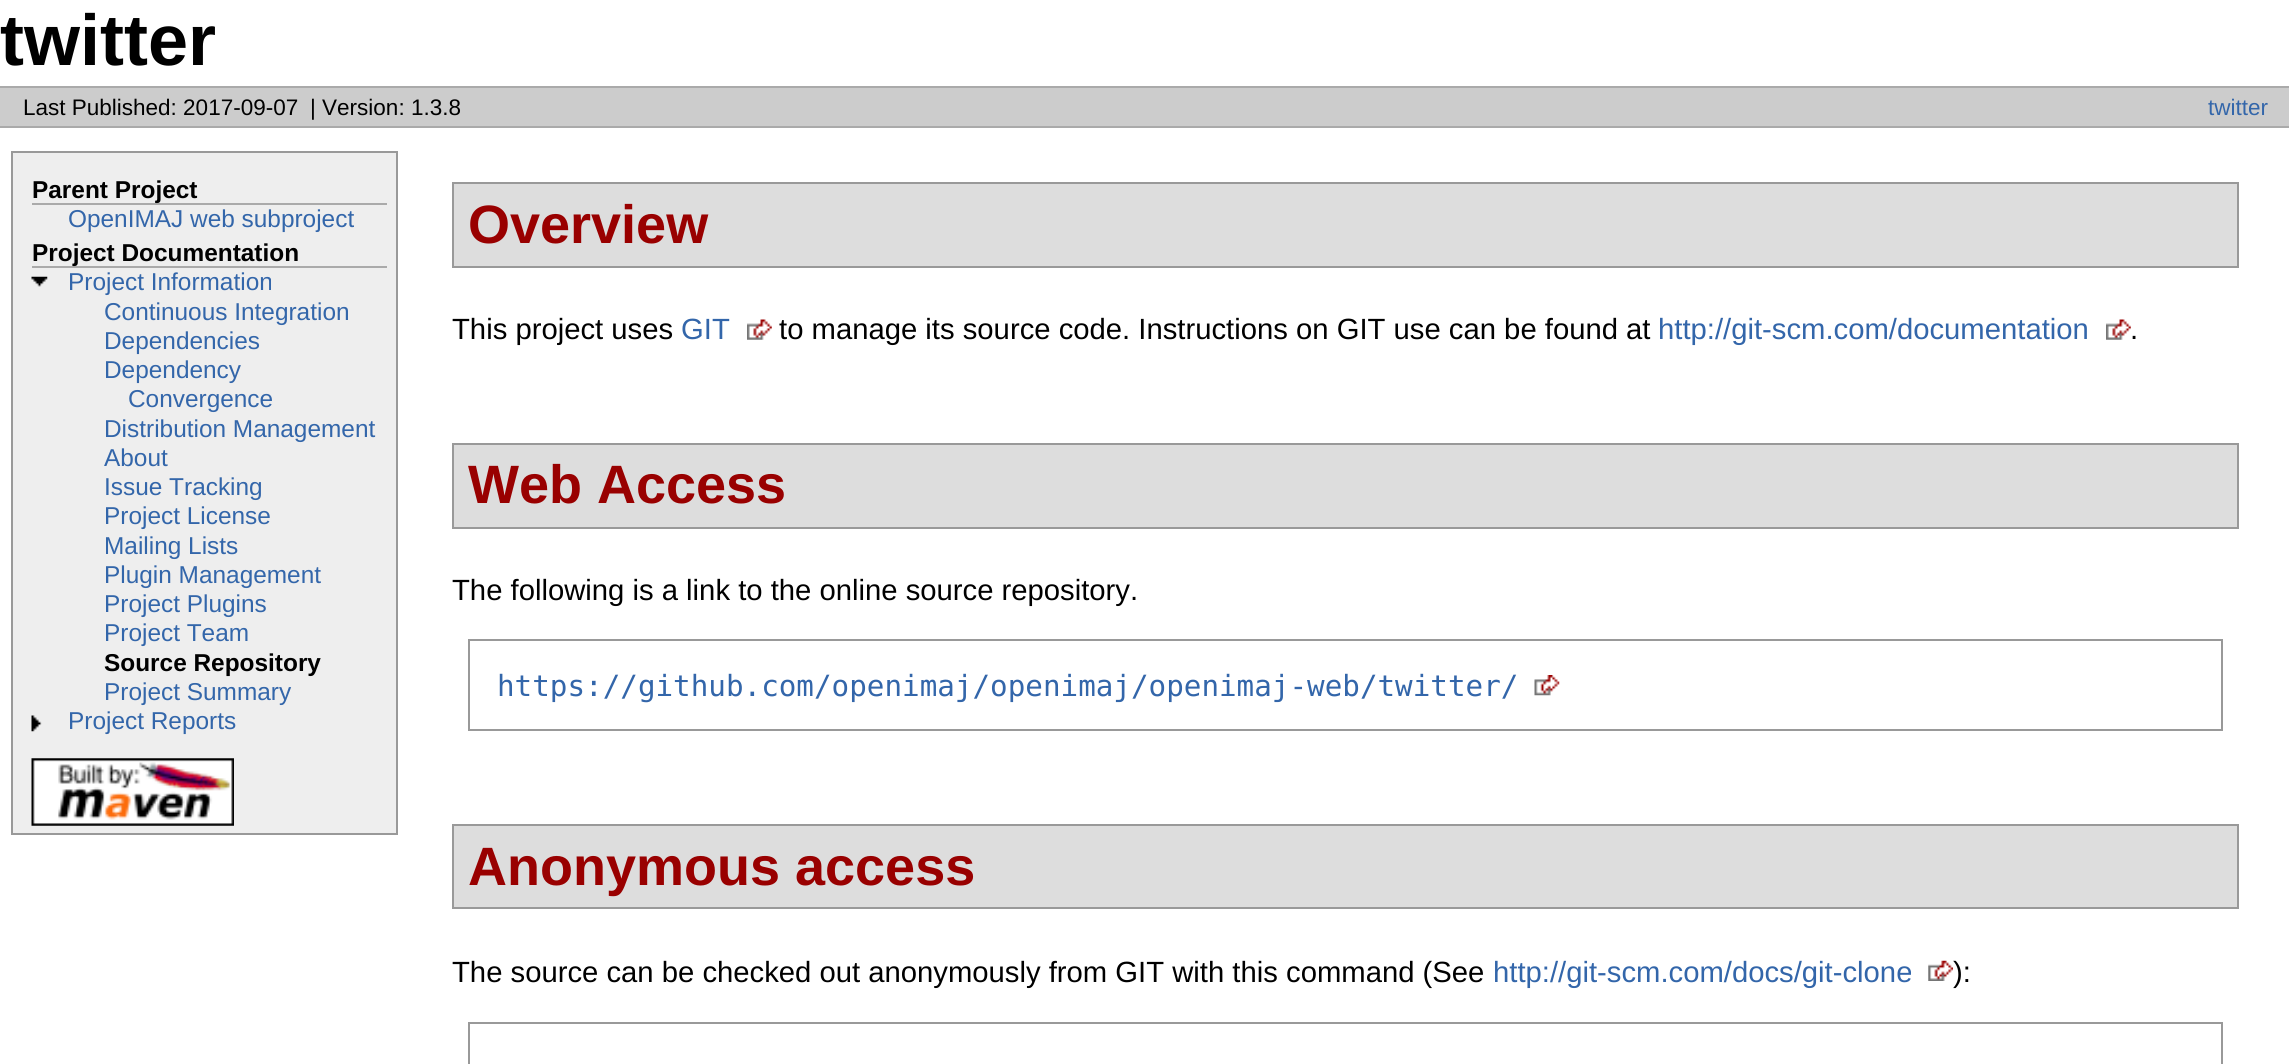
import math
import cairo



def draw_image(context, path, x, y, w, h):
    context.save()
    context.set_source_surface(cairo.ImageSurface.create_from_png(path), x, y)
    context.rectangle(x, y, w, h)
    context.fill()
    context.restore()


def draw(context):
    context.set_source_rgb(1, 1, 1)
    context.paint()
    context.set_source_rgb(204 / 255, 204 / 255, 204 / 255)
    context.rectangle(0, 88, 2289, 38)
    context.fill()
    context.set_source_rgb(170 / 255, 170 / 255, 170 / 255)
    context.rectangle(0, 86, 2289, 2)
    context.fill()
    context.rectangle(0, 126, 2289, 2)
    context.fill()
    context.set_source_rgb(238 / 255, 238 / 255, 238 / 255)
    context.rectangle(12, 152, 385, 682)
    context.fill_preserve()
    context.set_source_rgb(153 / 255, 153 / 255, 153 / 255)
    context.stroke()
    context.set_source_rgb(170 / 255, 170 / 255, 170 / 255)
    context.rectangle(32, 203, 355, 2)
    context.fill()
    context.rectangle(32, 266, 355, 2)
    context.fill()
    draw_image(context, "images/1.png", 31, 276, 17, 11)
    draw_image(context, "images/2.png", 31, 715, 11, 17)
    draw_image(context, "images/3.png", 31, 758, 203, 68)
    context.set_source_rgb(221 / 255, 221 / 255, 221 / 255)
    context.rectangle(453, 183, 1785, 84)
    context.fill_preserve()
    context.set_source_rgb(153 / 255, 153 / 255, 153 / 255)
    context.stroke()
    draw_image(context, "images/4.png", 747, 319, 25, 21)
    draw_image(context, "images/4.png", 2106, 319, 25, 21)
    context.set_source_rgb(221 / 255, 221 / 255, 221 / 255)
    context.rectangle(453, 444, 1785, 84)
    context.fill_preserve()
    context.set_source_rgb(153 / 255, 153 / 255, 153 / 255)
    context.stroke()
    context.rectangle(469, 640, 1753, 90)
    context.stroke()
    draw_image(context, "images/5.png", 1534, 675, 26, 21)
    context.set_source_rgb(221 / 255, 221 / 255, 221 / 255)
    context.rectangle(453, 825, 1785, 83)
    context.fill_preserve()
    context.set_source_rgb(153 / 255, 153 / 255, 153 / 255)
    context.stroke()
    draw_image(context, "images/6.png", 1928, 960, 25, 21)
    context.rectangle(469, 1023, 1753, 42)
    context.stroke()
    context.select_font_face("Liberation Sans", cairo.FontSlant.NORMAL, cairo.FontWeight.BOLD)
    context.set_font_size(72)
    context.set_source_rgb(0, 0, 0)
    context.move_to(0, 65)
    context.show_text("twitter")
    context.select_font_face("Liberation Sans")
    context.set_font_size(22.5)
    context.move_to(23, 115)
    context.show_text("Last Published: 2017-09-07")
    context.move_to(310, 115)
    context.show_text("| Version: 1.3.8")
    context.set_source_rgb(51 / 255, 102 / 255, 170 / 255)
    context.move_to(2208, 115)
    context.show_text("twitter")
    context.select_font_face("Liberation Sans", cairo.FontSlant.NORMAL, cairo.FontWeight.BOLD)
    context.set_font_size(24.4)
    context.set_source_rgb(0, 0, 0)
    context.move_to(32, 198)
    context.show_text("Parent Project")
    context.select_font_face("Liberation Sans")
    context.set_source_rgb(51 / 255, 102 / 255, 170 / 255)
    context.move_to(68, 227)
    context.show_text("OpenIMAJ web subproject")
    context.select_font_face("Liberation Sans", cairo.FontSlant.NORMAL, cairo.FontWeight.BOLD)
    context.set_source_rgb(0, 0, 0)
    context.move_to(32, 261)
    context.show_text("Project Documentation")
    context.select_font_face("Liberation Sans")
    context.set_source_rgb(51 / 255, 102 / 255, 170 / 255)
    context.move_to(68, 290)
    context.show_text("Project Information")
    context.move_to(104, 320)
    context.show_text("Continuous Integration")
    context.move_to(104, 349)
    context.show_text("Dependencies")
    context.move_to(104, 378)
    context.show_text("Dependency")
    context.move_to(128, 407)
    context.show_text("Convergence")
    context.move_to(104, 437)
    context.show_text("Distribution Management")
    context.move_to(104, 466)
    context.show_text("About")
    context.move_to(104, 495)
    context.show_text("Issue Tracking")
    context.move_to(104, 524)
    context.show_text("Project License")
    context.move_to(104, 554)
    context.show_text("Mailing Lists")
    context.move_to(104, 583)
    context.show_text("Plugin Management")
    context.move_to(104, 612)
    context.show_text("Project Plugins")
    context.move_to(104, 641)
    context.show_text("Project Team")
    context.select_font_face("Liberation Sans", cairo.FontSlant.NORMAL, cairo.FontWeight.BOLD)
    context.set_source_rgb(0, 0, 0)
    context.move_to(104, 671)
    context.show_text("Source Repository")
    context.select_font_face("Liberation Sans")
    context.set_source_rgb(51 / 255, 102 / 255, 170 / 255)
    context.move_to(104, 700)
    context.show_text("Project Summary")
    context.move_to(68, 729)
    context.show_text("Project Reports")
    context.select_font_face("Liberation Sans", cairo.FontSlant.NORMAL, cairo.FontWeight.BOLD)
    context.set_font_size(54)
    context.set_source_rgb(153 / 255, 0, 0)
    context.move_to(468, 243)
    context.show_text("Overview")
    context.select_font_face("Liberation Sans")
    context.set_font_size(29.25)
    context.set_source_rgb(0, 0, 0)
    context.move_to(452, 339)
    context.show_text("This project uses")
    context.set_source_rgb(51 / 255, 102 / 255, 170 / 255)
    context.move_to(681, 339)
    context.show_text("GIT")
    context.set_source_rgb(0, 0, 0)
    context.move_to(779, 339)
    context.show_text("to manage its source code. Instructions on GIT use can be found at")
    context.set_source_rgb(51 / 255, 102 / 255, 170 / 255)
    context.move_to(1658, 339)
    context.show_text("http://git-scm.com/documentation")
    context.set_source_rgb(0, 0, 0)
    context.move_to(2130, 339)
    context.show_text(".")
    context.select_font_face("Liberation Sans", cairo.FontSlant.NORMAL, cairo.FontWeight.BOLD)
    context.set_font_size(54)
    context.set_source_rgb(153 / 255, 0, 0)
    context.move_to(468, 503)
    context.show_text("Web Access")
    context.select_font_face("Liberation Sans")
    context.set_font_size(29.25)
    context.set_source_rgb(0, 0, 0)
    context.move_to(452, 600)
    context.show_text("The following is a link to the online source repository.")
    context.select_font_face("DejaVu Sans Mono")
    context.set_source_rgb(51 / 255, 102 / 255, 170 / 255)
    context.move_to(497, 696)
    context.show_text("https://github.com/openimaj/openimaj/openimaj-web/twitter/")
    context.select_font_face("Liberation Sans", cairo.FontSlant.NORMAL, cairo.FontWeight.BOLD)
    context.set_font_size(54)
    context.set_source_rgb(153 / 255, 0, 0)
    context.move_to(468, 885)
    context.show_text("Anonymous access")
    context.select_font_face("Liberation Sans")
    context.set_font_size(29.25)
    context.set_source_rgb(0, 0, 0)
    context.move_to(452, 982)
    context.show_text("The source can be checked out anonymously from GIT with this command (See")
    context.set_source_rgb(51 / 255, 102 / 255, 170 / 255)
    context.move_to(1493, 982)
    context.show_text("http://git-scm.com/docs/git-clone")
    context.set_source_rgb(0, 0, 0)
    context.move_to(1953, 982)
    context.show_text("):")


surface = cairo.ImageSurface(cairo.Format.RGB24, 2289, 1064)
context = cairo.Context(surface)
options = cairo.FontOptions()
options.set_hint_metrics(cairo.HintMetrics.OFF)
options.set_hint_style(cairo.HintStyle.NONE)
context.set_font_options(options)
context.set_miter_limit(4)
draw(context)
surface.write_to_png("out.png")
